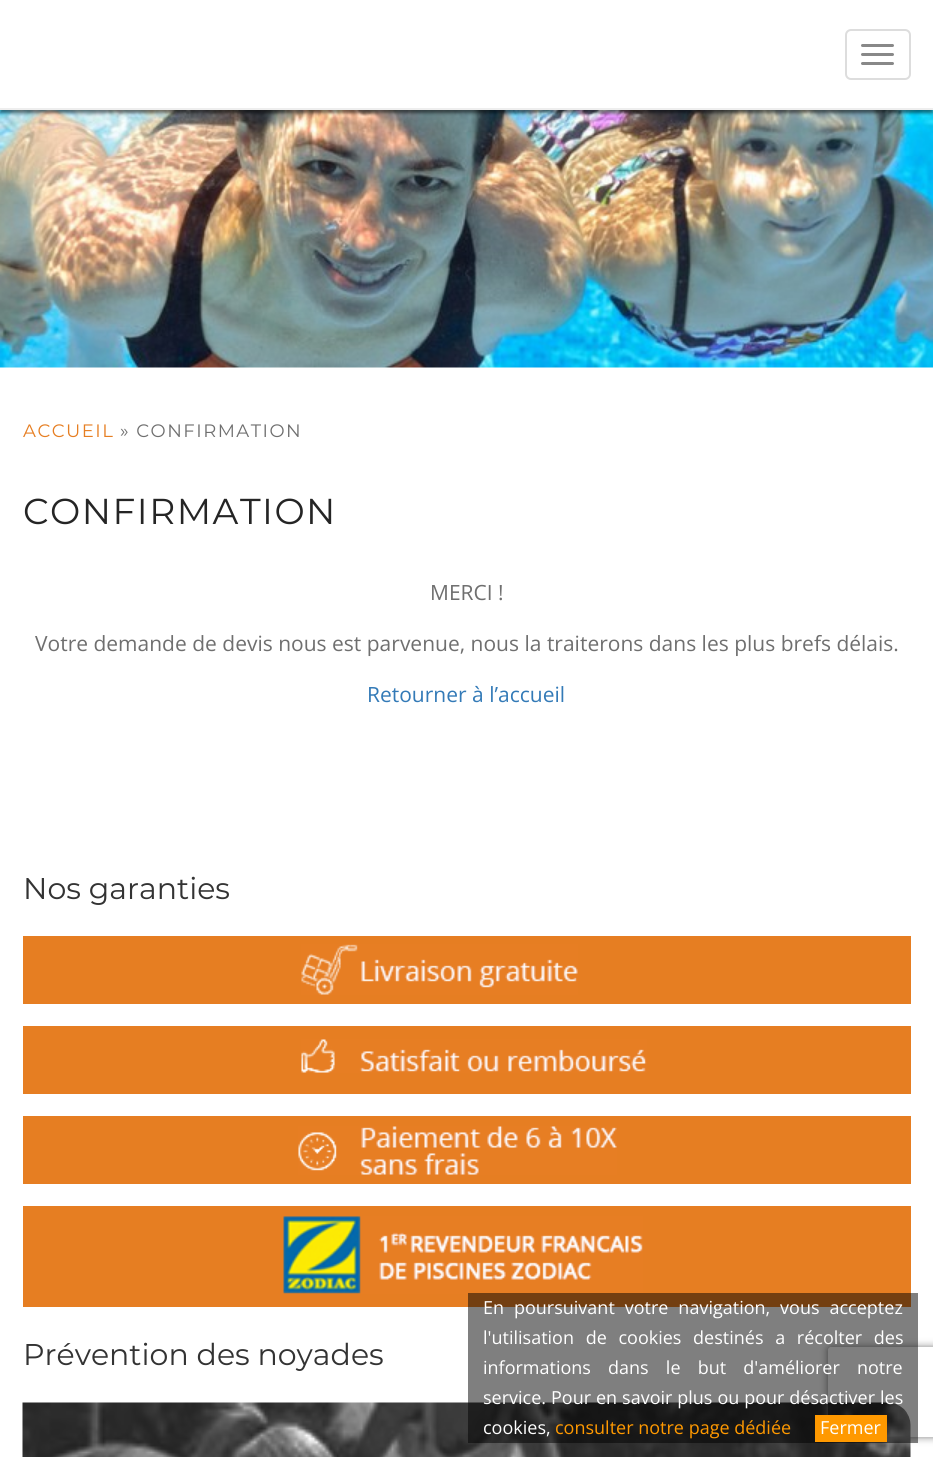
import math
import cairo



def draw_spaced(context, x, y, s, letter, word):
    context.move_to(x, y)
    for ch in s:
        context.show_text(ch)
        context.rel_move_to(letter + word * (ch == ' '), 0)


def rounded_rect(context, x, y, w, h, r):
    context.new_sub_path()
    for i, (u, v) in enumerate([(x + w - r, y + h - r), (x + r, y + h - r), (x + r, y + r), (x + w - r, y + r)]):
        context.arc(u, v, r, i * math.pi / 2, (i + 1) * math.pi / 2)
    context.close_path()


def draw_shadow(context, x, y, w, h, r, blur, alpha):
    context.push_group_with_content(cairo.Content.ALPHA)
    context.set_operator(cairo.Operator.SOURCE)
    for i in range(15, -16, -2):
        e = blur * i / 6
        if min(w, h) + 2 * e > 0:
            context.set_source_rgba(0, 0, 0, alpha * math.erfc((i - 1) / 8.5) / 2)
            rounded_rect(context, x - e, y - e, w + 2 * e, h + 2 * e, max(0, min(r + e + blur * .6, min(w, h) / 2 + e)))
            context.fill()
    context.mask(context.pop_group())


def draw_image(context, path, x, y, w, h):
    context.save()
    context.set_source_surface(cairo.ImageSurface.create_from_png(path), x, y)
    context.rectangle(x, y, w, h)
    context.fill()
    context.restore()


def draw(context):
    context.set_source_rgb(1, 1, 1)
    context.paint()
    draw_image(context, "images/1.png", 0, 110, 933, 258)
    context.save()
    context.rectangle(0, 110, 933, 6)
    context.clip()
    context.set_source_rgb(0, 0, 0)
    draw_shadow(context, 0, 3, 933, 110, 0, 1.5, 0.5)
    context.restore()
    context.set_source_rgb(238 / 255, 238 / 255, 238 / 255)
    context.rectangle(0, 108, 933, 2)
    context.fill()
    rounded_rect(context, 846, 30, 64, 49, 5)
    context.set_source_rgb(221 / 255, 221 / 255, 221 / 255)
    context.stroke()
    context.set_source_rgb(136 / 255, 136 / 255, 136 / 255)
    rounded_rect(context, 861, 44, 33, 3, 1.5)
    context.fill()
    rounded_rect(context, 861, 53, 33, 3, 1.5)
    context.fill()
    rounded_rect(context, 861, 62, 33, 3, 1.5)
    context.fill()
    context.set_source_rgb(230 / 255, 126 / 255, 34 / 255)
    context.rectangle(23, 936, 888, 68)
    context.fill()
    draw_image(context, "images/2.png", 301, 944, 277, 51)
    context.rectangle(23, 1026, 888, 68)
    context.fill()
    draw_image(context, "images/3.png", 301, 1039, 346, 34)
    context.rectangle(23, 1116, 888, 68)
    context.fill()
    draw_image(context, "images/4.png", 298, 1126, 319, 49)
    context.rectangle(23, 1206, 888, 101)
    context.fill()
    draw_image(context, "images/5.png", 283, 1216, 360, 78)
    draw_image(context, "images/6.png", 22, 1402, 889, 55)
    context.save()
    context.set_fill_rule(cairo.FillRule.EVEN_ODD)
    context.new_path()
    context.move_to(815, 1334)
    context.line_to(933, 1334)
    context.line_to(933, 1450)
    context.line_to(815, 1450)
    context.close_path()
    context.move_to(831, 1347)
    context.line_to(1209, 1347)
    context.curve_to(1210.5, 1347, 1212, 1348.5, 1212, 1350)
    context.line_to(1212, 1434)
    context.curve_to(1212, 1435.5, 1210.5, 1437, 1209, 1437)
    context.line_to(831, 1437)
    context.curve_to(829.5, 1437, 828, 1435.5, 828, 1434)
    context.line_to(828, 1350)
    context.curve_to(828, 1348.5, 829.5, 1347, 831, 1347)
    context.close_path()
    context.clip()
    context.set_source_rgb(128 / 255, 128 / 255, 128 / 255)
    draw_shadow(context, 828, 1347, 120, 90, 3, 4, 1)
    context.restore()
    context.set_source_rgba(0, 0, 0, 0.5)
    context.rectangle(468, 1293, 450, 150)
    context.fill()
    context.set_source_rgb(1, 153 / 255, 0)
    context.rectangle(815, 1415, 72, 27)
    context.fill()
    context.select_font_face("Montserrat")
    context.set_font_size(18)
    context.set_source_rgb(230 / 255, 126 / 255, 34 / 255)
    draw_spaced(context, 23, 437, "ACCUEIL", 1.5, 0)
    context.set_source_rgb(111 / 255, 111 / 255, 111 / 255)
    draw_spaced(context, 120, 437, "» CONFIRMATION", 1.5, 0)
    context.set_font_size(36)
    context.set_source_rgb(37 / 255, 37 / 255, 37 / 255)
    draw_spaced(context, 23, 524, "CONFIRMATION", 1.5, 0)
    context.select_font_face("Open Sans")
    context.set_font_size(21)
    context.set_source_rgb(111 / 255, 111 / 255, 111 / 255)
    context.move_to(430, 600)
    context.show_text("MERCI !")
    context.move_to(35, 651)
    context.show_text("Votre demande de devis nous est parvenue, nous la traiterons dans les plus brefs délais.")
    context.set_source_rgb(51 / 255, 122 / 255, 183 / 255)
    context.move_to(367, 702)
    context.show_text("Retourner à l’accueil")
    context.select_font_face("Montserrat")
    context.set_font_size(30)
    context.set_source_rgb(51 / 255, 51 / 255, 51 / 255)
    context.move_to(23, 899)
    context.show_text("Nos garanties")
    context.move_to(23, 1365)
    context.show_text("Prévention des noyades")
    context.select_font_face("Open Sans")
    context.set_font_size(18)
    context.set_source_rgb(1, 1, 1)
    draw_spaced(context, 483, 1314, "En poursuivant votre navigation, vous acceptez", 0, 5.25)
    draw_spaced(context, 483, 1344, "l'utilisation de cookies destinés a récolter des", 0, 7)
    draw_spaced(context, 483, 1374, "informations dans le but d'améliorer notre", 0, 12.5)
    context.move_to(483, 1404)
    context.show_text("service.")
    draw_spaced(context, 551, 1404, "Pour en savoir plus ou pour désactiver les", 0, 0.25)
    context.move_to(483, 1434)
    context.show_text("cookies,")
    context.set_source_rgb(1, 153 / 255, 0)
    context.move_to(555, 1434)
    context.show_text("consulter notre page dédiée")
    context.set_source_rgb(1, 1, 1)
    context.move_to(820, 1434)
    context.show_text("Fermer")


surface = cairo.ImageSurface(cairo.Format.RGB24, 933, 1457)
context = cairo.Context(surface)
options = cairo.FontOptions()
options.set_hint_metrics(cairo.HintMetrics.OFF)
options.set_hint_style(cairo.HintStyle.NONE)
context.set_font_options(options)
context.set_miter_limit(4)
draw(context)
surface.write_to_png("out.png")
